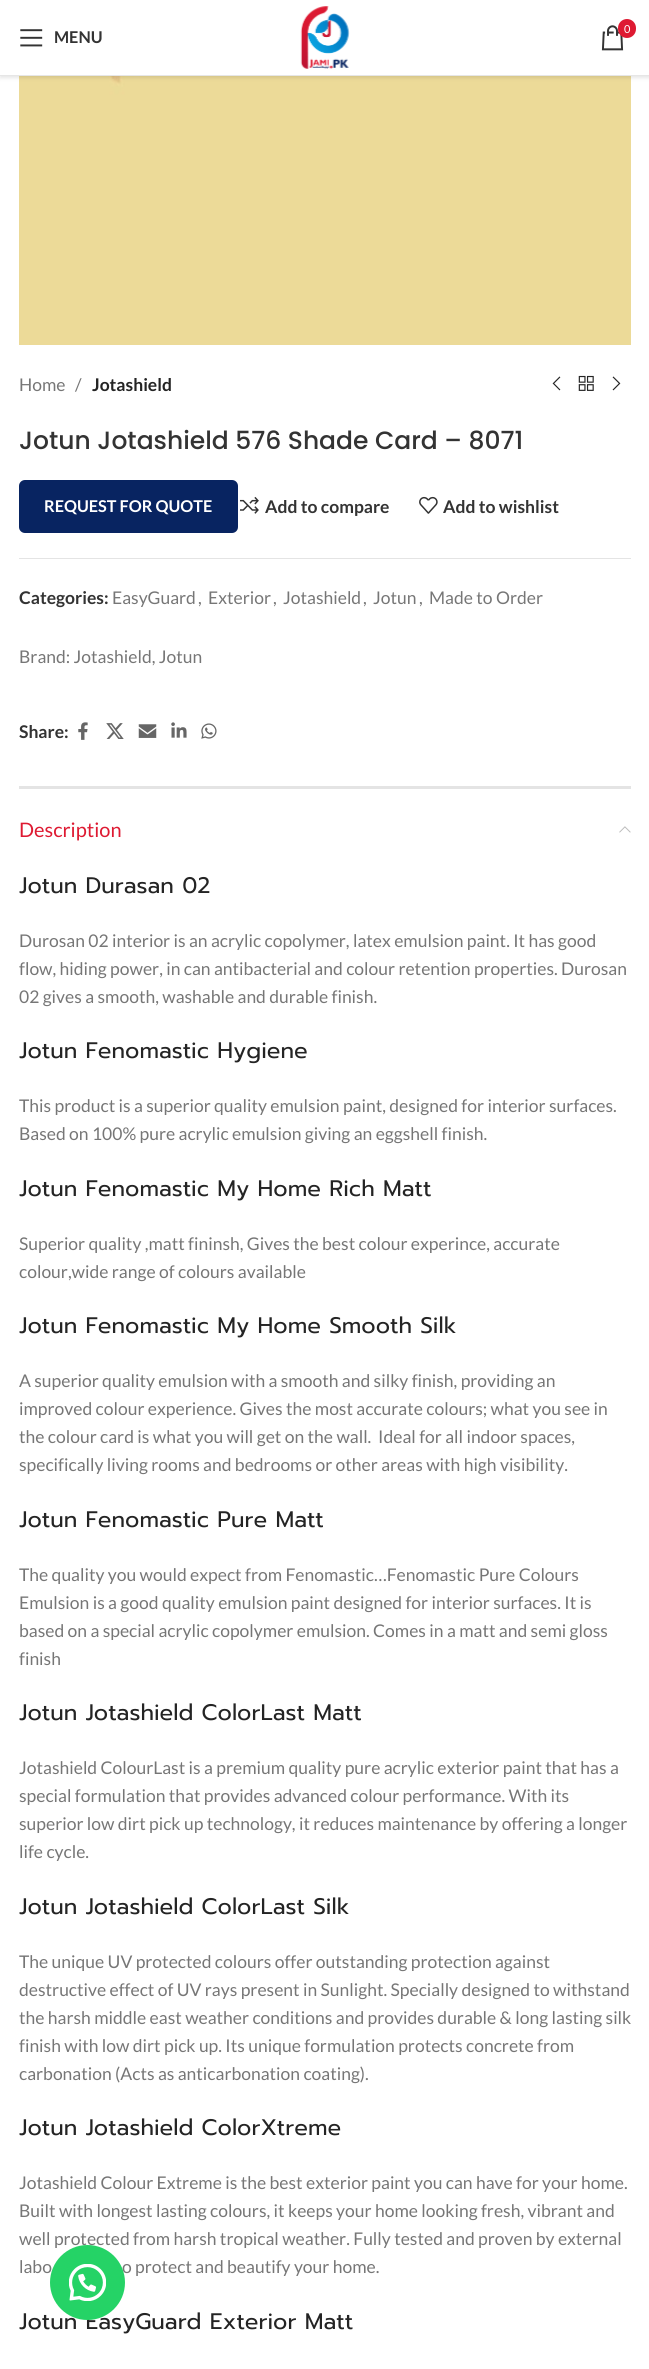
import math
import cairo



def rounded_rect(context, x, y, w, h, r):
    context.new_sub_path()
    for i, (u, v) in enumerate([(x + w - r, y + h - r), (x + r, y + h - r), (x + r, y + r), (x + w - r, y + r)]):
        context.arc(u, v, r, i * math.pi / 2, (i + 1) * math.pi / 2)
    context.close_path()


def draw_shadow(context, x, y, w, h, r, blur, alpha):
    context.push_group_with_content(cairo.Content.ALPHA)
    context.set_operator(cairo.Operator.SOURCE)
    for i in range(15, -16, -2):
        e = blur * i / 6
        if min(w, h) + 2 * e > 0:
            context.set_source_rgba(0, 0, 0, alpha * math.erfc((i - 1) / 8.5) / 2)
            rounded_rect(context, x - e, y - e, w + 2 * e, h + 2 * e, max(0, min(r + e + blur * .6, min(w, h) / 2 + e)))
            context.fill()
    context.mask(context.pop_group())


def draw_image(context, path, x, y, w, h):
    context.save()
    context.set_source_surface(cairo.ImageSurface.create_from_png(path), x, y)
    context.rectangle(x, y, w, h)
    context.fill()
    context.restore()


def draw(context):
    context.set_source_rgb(1, 1, 1)
    context.paint()
    draw_image(context, "images/4.png", 19, 76, 612, 269)
    context.set_source_rgb(0, 0, 0)
    draw_shadow(context, 0, 1, 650, 77, 0, 2, 0.1)
    context.set_source_rgb(1, 1, 1)
    context.rectangle(0, 0, 649, 75)
    context.fill()
    context.set_source_rgb(230 / 255, 230 / 255, 230 / 255)
    context.rectangle(0, 75, 649, 1)
    context.fill()
    draw_image(context, "images/1.png", 300, 6, 50, 63)
    draw_image(context, "images/2.png", 601, 25, 23, 26)
    context.set_source_rgb(222 / 255, 26 / 255, 50 / 255)
    rounded_rect(context, 618, 19, 18, 19, 9)
    context.fill()
    draw_image(context, "images/3.png", 20, 29, 23, 18)
    draw_image(context, "images/5.png", 552, 376, 9, 15)
    draw_image(context, "images/6.png", 578, 375, 16, 16)
    draw_image(context, "images/7.png", 612, 376, 9, 15)
    context.set_source_rgb(8 / 255, 36 / 255, 97 / 255)
    rounded_rect(context, 19, 480, 219, 53, 6)
    context.fill()
    draw_image(context, "images/8.png", 240, 496, 19, 18)
    draw_image(context, "images/9.png", 419, 496, 19, 18)
    context.set_source_rgb(228 / 255, 228 / 255, 228 / 255)
    context.rectangle(19, 558, 612, 1)
    context.fill()
    draw_image(context, "images/10.png", 78, 722, 10, 18)
    draw_image(context, "images/11.png", 106, 723, 18, 16)
    draw_image(context, "images/12.png", 138, 724, 19, 14)
    draw_image(context, "images/13.png", 171, 722, 16, 16)
    draw_image(context, "images/14.png", 201, 723, 16, 16)
    context.rectangle(19, 786, 612, 3)
    context.fill()
    draw_image(context, "images/15.png", 619, 826, 12, 7)
    context.select_font_face("Lato")
    context.set_font_size(11)
    context.set_source_rgb(1, 1, 1)
    context.move_to(624, 33)
    context.show_text("0")
    context.select_font_face("Lato", cairo.FontSlant.NORMAL, cairo.FontWeight.BOLD)
    context.set_font_size(16.25)
    context.set_source_rgb(51 / 255, 51 / 255, 51 / 255)
    context.move_to(54, 43)
    context.show_text("MENU")
    context.select_font_face("Lato")
    context.set_font_size(17.5)
    context.set_source_rgb(118 / 255, 118 / 255, 118 / 255)
    context.move_to(19, 391)
    context.show_text("Home")
    context.move_to(75, 391)
    context.show_text("/")
    context.select_font_face("Lato", cairo.FontSlant.NORMAL, cairo.FontWeight.BOLD)
    context.set_source_rgb(36 / 255, 36 / 255, 36 / 255)
    context.move_to(92, 391)
    context.show_text("Jotashield")
    context.select_font_face("Poppins Medium")
    context.set_font_size(25)
    context.set_source_rgb(51 / 255, 51 / 255, 51 / 255)
    context.move_to(19, 449)
    context.show_text("Jotun Jotashield 576 Shade Card – 8071")
    context.select_font_face("Lato", cairo.FontSlant.NORMAL, cairo.FontWeight.BOLD)
    context.set_font_size(16.25)
    context.set_source_rgb(1, 1, 1)
    context.move_to(44, 512)
    context.show_text("REQUEST FOR QUOTE")
    context.set_font_size(17.5)
    context.set_source_rgb(51 / 255, 51 / 255, 51 / 255)
    context.move_to(265, 513)
    context.show_text("Add to compare")
    context.move_to(443, 513)
    context.show_text("Add to wishlist")
    context.move_to(19, 604)
    context.show_text("Categories:")
    context.select_font_face("Lato")
    context.set_source_rgb(118 / 255, 118 / 255, 118 / 255)
    context.move_to(112, 604)
    context.show_text("EasyGuard")
    context.move_to(198, 604)
    context.show_text(",")
    context.move_to(208, 604)
    context.show_text("Exterior")
    context.move_to(273, 604)
    context.show_text(",")
    context.move_to(283, 604)
    context.show_text("Jotashield")
    context.move_to(363, 604)
    context.show_text(",")
    context.move_to(373, 604)
    context.show_text("Jotun")
    context.move_to(419, 604)
    context.show_text(",")
    context.move_to(429, 604)
    context.show_text("Made to Order")
    context.move_to(19, 663)
    context.show_text("Brand: Jotashield, Jotun")
    context.select_font_face("Lato", cairo.FontSlant.NORMAL, cairo.FontWeight.BOLD)
    context.set_source_rgb(51 / 255, 51 / 255, 51 / 255)
    context.move_to(19, 738)
    context.show_text("Share:")
    context.select_font_face("Lato")
    context.set_font_size(20)
    context.set_source_rgb(222 / 255, 26 / 255, 50 / 255)
    context.move_to(19, 837)
    context.show_text("Description")
    context.select_font_face("Prompt")
    context.set_font_size(22.5)
    context.set_source_rgb(36 / 255, 36 / 255, 36 / 255)
    context.move_to(19, 893)
    context.show_text("Jotun Durasan 02")
    context.select_font_face("Lato")
    context.set_font_size(17.5)
    context.set_source_rgb(118 / 255, 118 / 255, 118 / 255)
    context.move_to(19, 947)
    context.show_text("Durosan 02 interior is an acrylic copolymer, latex emulsion paint. It has good")
    context.move_to(19, 975)
    context.show_text("flow, hiding power, in can antibacterial and colour retention properties. Durosan")
    context.move_to(19, 1003)
    context.show_text("02 gives a smooth, washable and durable finish.")
    context.select_font_face("Prompt")
    context.set_font_size(22.5)
    context.set_source_rgb(36 / 255, 36 / 255, 36 / 255)
    context.move_to(19, 1058)
    context.show_text("Jotun Fenomastic Hygiene")
    context.select_font_face("Lato")
    context.set_font_size(17.5)
    context.set_source_rgb(118 / 255, 118 / 255, 118 / 255)
    context.move_to(19, 1112)
    context.show_text("This product is a superior quality emulsion paint, designed for interior surfaces.")
    context.move_to(19, 1140)
    context.show_text("Based on 100% pure acrylic emulsion giving an eggshell finish.")
    context.select_font_face("Prompt")
    context.set_font_size(22.5)
    context.set_source_rgb(36 / 255, 36 / 255, 36 / 255)
    context.move_to(19, 1196)
    context.show_text("Jotun Fenomastic My Home Rich Matt")
    context.select_font_face("Lato")
    context.set_font_size(17.5)
    context.set_source_rgb(118 / 255, 118 / 255, 118 / 255)
    context.move_to(19, 1250)
    context.show_text("Superior quality ,matt fininsh, Gives the best colour experince, accurate")
    context.move_to(19, 1278)
    context.show_text("colour,wide range of colours available")
    context.select_font_face("Prompt")
    context.set_font_size(22.5)
    context.set_source_rgb(36 / 255, 36 / 255, 36 / 255)
    context.move_to(19, 1333)
    context.show_text("Jotun Fenomastic My Home Smooth Silk")
    context.select_font_face("Lato")
    context.set_font_size(17.5)
    context.set_source_rgb(118 / 255, 118 / 255, 118 / 255)
    context.move_to(19, 1387)
    context.show_text("A superior quality emulsion with a smooth and silky finish, providing an")
    context.move_to(19, 1415)
    context.show_text("improved colour experience. Gives the most accurate colours; what you see in")
    context.move_to(19, 1443)
    context.show_text("the colour card is what you will get on the wall.  Ideal for all indoor spaces,")
    context.move_to(19, 1471)
    context.show_text("specifically living rooms and bedrooms or other areas with high visibility.")
    context.select_font_face("Prompt")
    context.set_font_size(22.5)
    context.set_source_rgb(36 / 255, 36 / 255, 36 / 255)
    context.move_to(19, 1527)
    context.show_text("Jotun Fenomastic Pure Matt")
    context.select_font_face("Lato")
    context.set_font_size(17.5)
    context.set_source_rgb(118 / 255, 118 / 255, 118 / 255)
    context.move_to(19, 1581)
    context.show_text("The quality you would expect from Fenomastic…Fenomastic Pure Colours")
    context.move_to(19, 1609)
    context.show_text("Emulsion is a good quality emulsion paint designed for interior surfaces. It is")
    context.move_to(19, 1637)
    context.show_text("based on a special acrylic copolymer emulsion. Comes in a matt and semi gloss")
    context.move_to(19, 1665)
    context.show_text("finish")
    context.select_font_face("Prompt")
    context.set_font_size(22.5)
    context.set_source_rgb(36 / 255, 36 / 255, 36 / 255)
    context.move_to(19, 1720)
    context.show_text("Jotun Jotashield ColorLast Matt")
    context.select_font_face("Lato")
    context.set_font_size(17.5)
    context.set_source_rgb(118 / 255, 118 / 255, 118 / 255)
    context.move_to(19, 1774)
    context.show_text("Jotashield ColourLast is a premium quality pure acrylic exterior paint that has a")
    context.move_to(19, 1802)
    context.show_text("special formulation that provides advanced colour performance. With its")
    context.move_to(19, 1830)
    context.show_text("superior low dirt pick up technology, it reduces maintenance by offering a longer")
    context.move_to(19, 1858)
    context.show_text("life cycle.")
    context.select_font_face("Prompt")
    context.set_font_size(22.5)
    context.set_source_rgb(36 / 255, 36 / 255, 36 / 255)
    context.move_to(19, 1914)
    context.show_text("Jotun Jotashield ColorLast Silk")
    context.select_font_face("Lato")
    context.set_font_size(17.5)
    context.set_source_rgb(118 / 255, 118 / 255, 118 / 255)
    context.move_to(19, 1968)
    context.show_text("The unique UV protected colours offer outstanding protection against")
    context.move_to(19, 1996)
    context.show_text("destructive effect of UV rays present in Sunlight. Specially designed to withstand")
    context.move_to(19, 2024)
    context.show_text("the harsh middle east weather conditions and provides durable & long lasting silk")
    context.move_to(19, 2052)
    context.show_text("finish with low dirt pick up. Its unique formulation protects concrete from")
    context.move_to(19, 2080)
    context.show_text("carbonation (Acts as anticarbonation coating).")
    context.select_font_face("Prompt")
    context.set_font_size(22.5)
    context.set_source_rgb(36 / 255, 36 / 255, 36 / 255)
    context.move_to(19, 2135)
    context.show_text("Jotun Jotashield ColorXtreme")
    context.select_font_face("Lato")
    context.set_font_size(17.5)
    context.set_source_rgb(118 / 255, 118 / 255, 118 / 255)
    context.move_to(19, 2189)
    context.show_text("Jotashield Colour Extreme is the best exterior paint you can have for your home.")
    context.move_to(19, 2217)
    context.show_text("Built with longest lasting colours, it keeps your home looking fresh, vibrant and")
    context.move_to(19, 2245)
    context.show_text("well protected from harsh tropical weather. Fully tested and proven by external")
    context.move_to(19, 2273)
    context.show_text("labo")
    context.move_to(122, 2273)
    context.show_text("o protect and beautify your home.")
    context.select_font_face("Prompt")
    context.set_font_size(22.5)
    context.set_source_rgb(36 / 255, 36 / 255, 36 / 255)
    context.move_to(19, 2329)
    context.show_text("Jotun EasyGuard Exterior Matt")
    context.set_source_rgb(37 / 255, 211 / 255, 102 / 255)
    context.new_path()
    context.arc(87.5, 2282.5, 37.5, 0, 2 * math.pi)
    context.fill()
    draw_image(context, "images/16.png", 69, 2264, 37, 37)


surface = cairo.ImageSurface(cairo.Format.RGB24, 649, 2369)
context = cairo.Context(surface)
options = cairo.FontOptions()
options.set_hint_metrics(cairo.HintMetrics.OFF)
options.set_hint_style(cairo.HintStyle.NONE)
context.set_font_options(options)
context.set_miter_limit(4)
draw(context)
surface.write_to_png("out.png")
